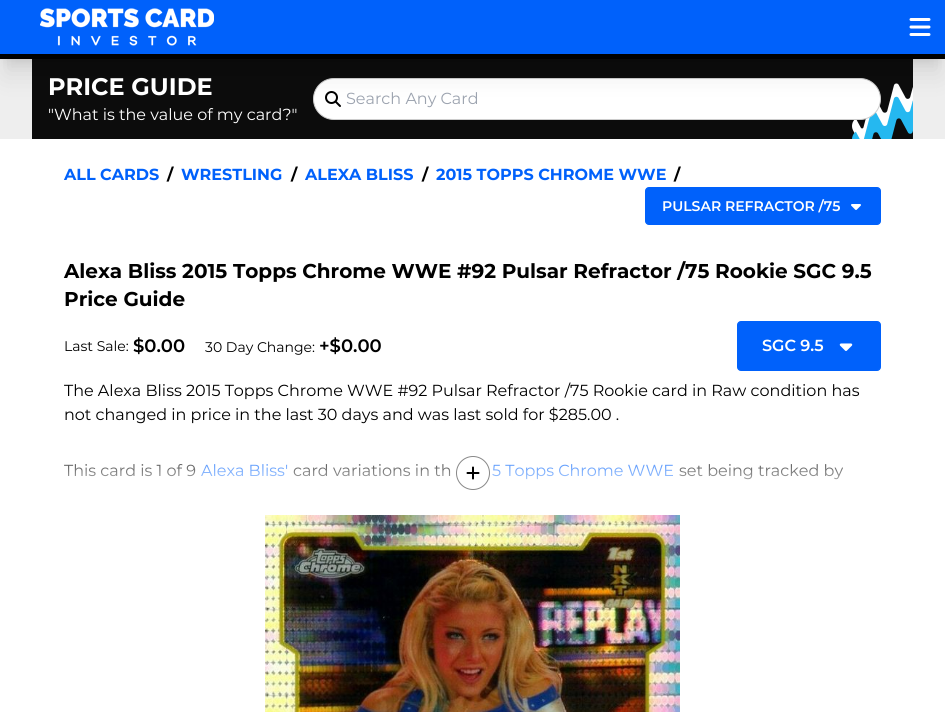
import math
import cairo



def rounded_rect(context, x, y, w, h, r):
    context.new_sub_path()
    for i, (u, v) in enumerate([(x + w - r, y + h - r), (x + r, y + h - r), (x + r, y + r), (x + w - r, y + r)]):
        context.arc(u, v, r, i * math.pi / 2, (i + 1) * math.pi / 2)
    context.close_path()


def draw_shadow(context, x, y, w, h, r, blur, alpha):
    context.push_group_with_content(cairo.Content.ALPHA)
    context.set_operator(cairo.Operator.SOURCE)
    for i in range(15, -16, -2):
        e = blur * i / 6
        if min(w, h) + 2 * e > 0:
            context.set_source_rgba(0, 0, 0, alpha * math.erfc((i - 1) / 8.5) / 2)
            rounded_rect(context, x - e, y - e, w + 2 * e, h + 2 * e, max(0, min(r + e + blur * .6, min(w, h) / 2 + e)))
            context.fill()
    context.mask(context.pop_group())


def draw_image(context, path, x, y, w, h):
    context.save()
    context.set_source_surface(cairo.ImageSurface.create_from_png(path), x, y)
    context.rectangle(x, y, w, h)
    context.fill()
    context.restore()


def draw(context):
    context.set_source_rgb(1, 1, 1)
    context.paint()
    context.set_source_rgb(238 / 255, 238 / 255, 238 / 255)
    context.rectangle(0, 59, 945, 80)
    context.fill()
    context.set_source_rgb(12 / 255, 12 / 255, 12 / 255)
    context.rectangle(32, 59, 881, 80)
    context.fill()
    context.set_source_rgb(0, 0, 0)
    draw_shadow(context, 6, 14, 933, 47, 0, 5, 0.1)
    draw_image(context, "images/4.png", 852, 83, 61, 56)
    context.set_source_rgb(1, 1, 1)
    rounded_rect(context, 313.5, 78.5, 567, 41, 20.5)
    context.fill_preserve()
    context.set_source_rgb(204 / 255, 204 / 255, 204 / 255)
    context.set_line_width(1)
    context.stroke()
    draw_image(context, "images/3.png", 325, 91, 16, 16)
    context.set_source_rgb(0, 0, 0)
    draw_shadow(context, 5, 25, 935, 49, 0, 12.5, 0.1)
    context.set_source_rgb(0, 97 / 255, 251 / 255)
    context.rectangle(0, 0, 945, 54)
    context.fill()
    context.set_source_rgb(0, 0, 0)
    context.rectangle(0, 54, 945, 5)
    context.fill()
    draw_image(context, "images/1.png", 40, 8, 174, 38)
    draw_image(context, "images/2.png", 909, 18, 22, 18)
    context.set_source_rgb(0, 97 / 255, 251 / 255)
    rounded_rect(context, 645.5, 187.5, 235, 37, 3.5)
    context.fill_preserve()
    context.stroke()
    draw_image(context, "images/5.png", 851, 204, 10, 6)
    rounded_rect(context, 737.5, 321.5, 143, 49, 3.5)
    context.fill_preserve()
    context.stroke()
    draw_image(context, "images/6.png", 839, 343, 14, 8)
    draw_image(context, "images/8.png", 265, 515, 415, 197)
    context.select_font_face("Montserrat", cairo.FontSlant.NORMAL, cairo.FontWeight.BOLD)
    context.set_font_size(24)
    context.set_source_rgb(1, 1, 1)
    context.move_to(48, 95)
    context.show_text("PRICE GUIDE")
    context.select_font_face("Montserrat")
    context.set_font_size(16)
    context.move_to(48, 120)
    context.show_text("\"What is the value of my card?\"")
    context.set_source_rgb(156 / 255, 163 / 255, 175 / 255)
    context.move_to(346, 104)
    context.show_text("Search Any Card")
    context.select_font_face("Montserrat", cairo.FontSlant.NORMAL, cairo.FontWeight.BOLD)
    context.set_source_rgb(0, 97 / 255, 251 / 255)
    context.move_to(64, 180)
    context.show_text("ALL CARDS")
    context.set_source_rgb(0, 0, 0)
    context.move_to(167, 180)
    context.show_text("/")
    context.set_source_rgb(0, 97 / 255, 251 / 255)
    context.move_to(181, 180)
    context.show_text("WRESTLING")
    context.set_source_rgb(0, 0, 0)
    context.move_to(291, 180)
    context.show_text("/")
    context.set_source_rgb(0, 97 / 255, 251 / 255)
    context.move_to(305, 180)
    context.show_text("ALEXA BLISS")
    context.set_source_rgb(0, 0, 0)
    context.move_to(422, 180)
    context.show_text("/")
    context.set_source_rgb(0, 97 / 255, 251 / 255)
    context.move_to(436, 180)
    context.show_text("2015 TOPPS CHROME WWE")
    context.set_source_rgb(0, 0, 0)
    context.move_to(674, 180)
    context.show_text("/")
    context.select_font_face("Montserrat SemiBold")
    context.set_font_size(14)
    context.set_source_rgb(1, 1, 1)
    context.move_to(662, 211)
    context.show_text("PULSAR REFRACTOR /75")
    context.select_font_face("Montserrat", cairo.FontSlant.NORMAL, cairo.FontWeight.BOLD)
    context.set_font_size(20)
    context.set_source_rgb(0, 0, 0)
    context.move_to(64, 278)
    context.show_text("Alexa Bliss 2015 Topps Chrome WWE #92 Pulsar Refractor /75 Rookie SGC 9.5")
    context.move_to(64, 306)
    context.show_text("Price Guide")
    context.select_font_face("Montserrat")
    context.set_font_size(14)
    context.move_to(64, 351)
    context.show_text("Last Sale:")
    context.select_font_face("Montserrat SemiBold")
    context.set_font_size(18)
    context.move_to(133, 352)
    context.show_text("$0.00")
    context.select_font_face("Montserrat")
    context.set_font_size(14)
    context.move_to(205, 352)
    context.show_text("30 Day Change:")
    context.select_font_face("Montserrat SemiBold")
    context.set_font_size(18)
    context.move_to(319, 352)
    context.show_text("+$0.00")
    context.set_font_size(16)
    context.set_source_rgb(1, 1, 1)
    context.move_to(762, 351)
    context.show_text("SGC 9.5")
    context.select_font_face("Montserrat")
    context.set_source_rgb(0, 0, 0)
    context.move_to(64, 396)
    context.show_text("The Alexa Bliss 2015 Topps Chrome WWE #92 Pulsar Refractor /75 Rookie card in Raw condition has")
    context.move_to(64, 420)
    context.show_text("not changed in price in the last 30 days and was last sold for $285.00 .")
    context.move_to(64, 476)
    context.show_text("This card is 1 of 9")
    context.set_source_rgb(0, 97 / 255, 251 / 255)
    context.move_to(201, 476)
    context.show_text("Alexa Bliss'")
    context.set_source_rgb(0, 0, 0)
    context.move_to(293, 476)
    context.show_text("card variations in th")
    context.set_source_rgb(0, 97 / 255, 251 / 255)
    context.move_to(492, 476)
    context.show_text("5 Topps Chrome WWE")
    context.set_source_rgb(0, 0, 0)
    context.move_to(679, 476)
    context.show_text("set being tracked by")
    gradient = cairo.LinearGradient(473, 507, 473, 443)
    gradient.add_color_stop_rgba(0.1, 1, 1, 1, 1)
    gradient.add_color_stop_rgba(1, 1, 1, 1, 0)
    context.set_source(gradient)
    context.rectangle(64, 464, 780, 16)
    context.fill()
    context.arc(473, 473, 16.5, 0, 2 * math.pi)
    context.set_source_rgb(136 / 255, 136 / 255, 136 / 255)
    context.stroke()
    draw_image(context, "images/7.png", 466, 466, 14, 14)


surface = cairo.ImageSurface(cairo.Format.RGB24, 945, 712)
context = cairo.Context(surface)
options = cairo.FontOptions()
options.set_hint_metrics(cairo.HintMetrics.OFF)
options.set_hint_style(cairo.HintStyle.NONE)
context.set_font_options(options)
context.set_miter_limit(4)
draw(context)
surface.write_to_png("out.png")
